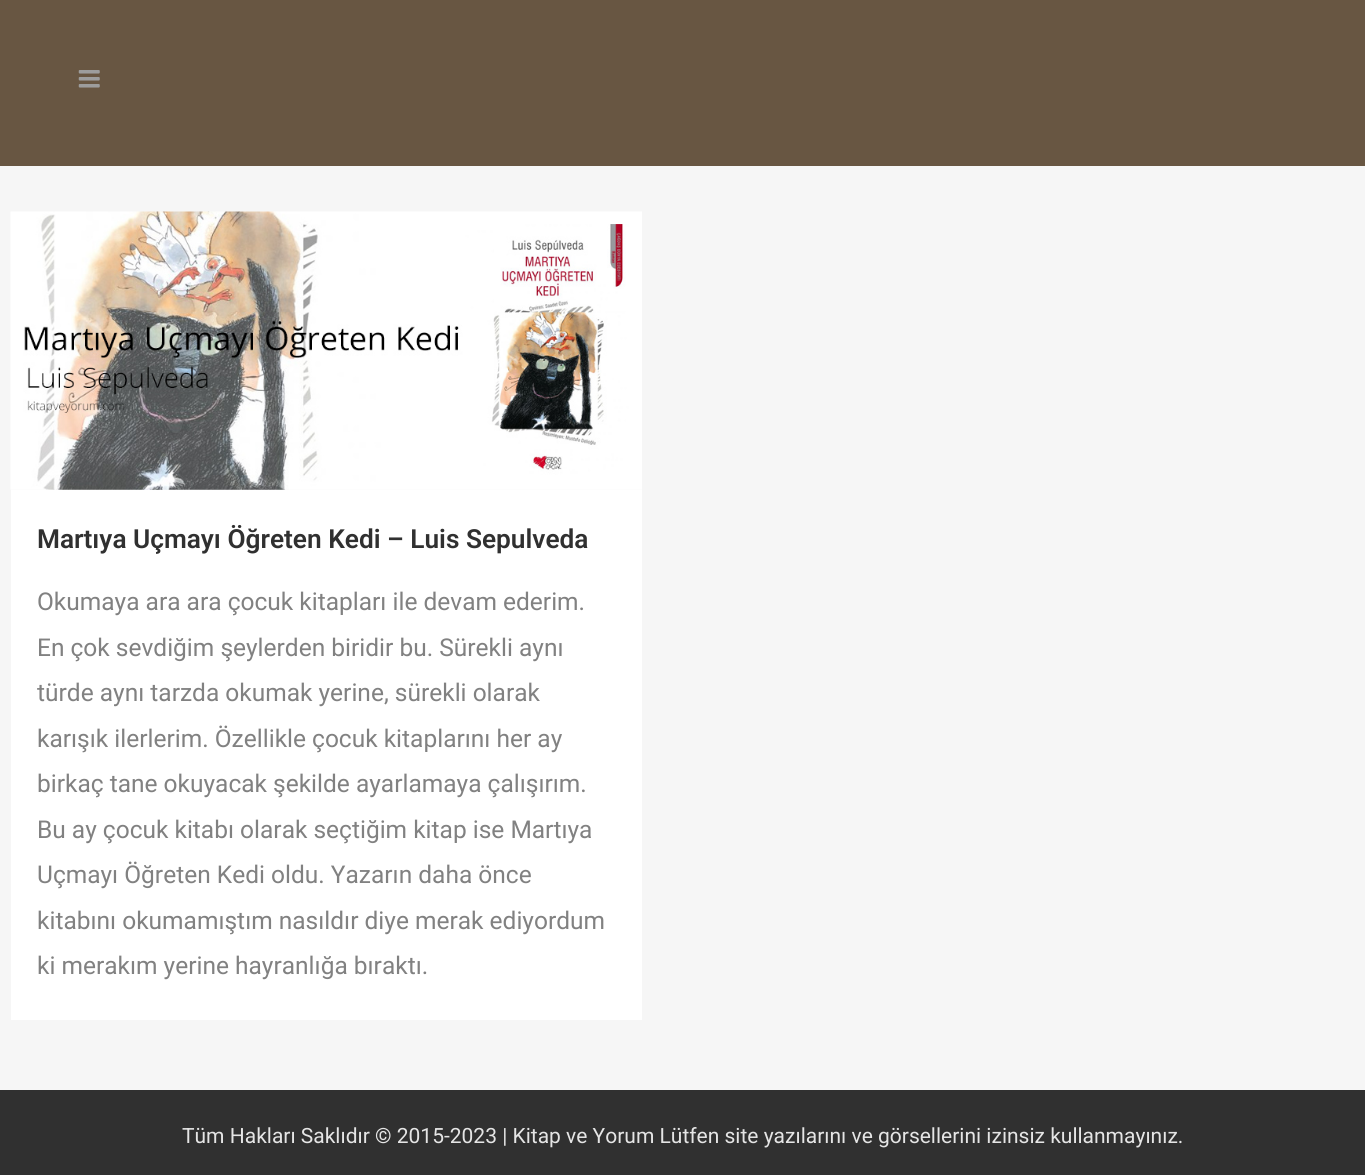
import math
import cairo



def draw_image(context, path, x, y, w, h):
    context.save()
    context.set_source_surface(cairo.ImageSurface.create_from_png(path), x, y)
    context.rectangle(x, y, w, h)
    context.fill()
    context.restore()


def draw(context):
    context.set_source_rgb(246 / 255, 246 / 255, 246 / 255)
    context.paint()
    context.set_source_rgb(104 / 255, 86 / 255, 66 / 255)
    context.rectangle(0, 0, 1365, 166)
    context.fill()
    draw_image(context, "images/1.png", 78, 70, 22, 18)
    draw_image(context, "images/2.png", 10, 211, 632, 279)
    context.set_source_rgb(1, 1, 1)
    context.rectangle(11, 490, 631, 530)
    context.fill()
    context.set_source_rgb(48 / 255, 48 / 255, 48 / 255)
    context.rectangle(0, 1090, 1365, 85)
    context.fill()
    context.select_font_face("Roboto SemiBold")
    context.set_font_size(26.25)
    context.move_to(37, 548)
    context.show_text("Martıya Uçmayı Öğreten Kedi – Luis Sepulveda")
    context.select_font_face("Roboto")
    context.set_font_size(24.5)
    context.set_source_rgb(129 / 255, 129 / 255, 129 / 255)
    context.move_to(37, 610)
    context.show_text("Okumaya ara ara çocuk kitapları ile devam ederim.")
    context.move_to(37, 656)
    context.show_text("En çok sevdiğim şeylerden biridir bu. Sürekli aynı")
    context.move_to(37, 701)
    context.show_text("türde aynı tarzda okumak yerine, sürekli olarak")
    context.move_to(37, 747)
    context.show_text("karışık ilerlerim. Özellikle çocuk kitaplarını her ay")
    context.move_to(37, 792)
    context.show_text("birkaç tane okuyacak şekilde ayarlamaya çalışırım.")
    context.move_to(37, 838)
    context.show_text("Bu ay çocuk kitabı olarak seçtiğim kitap ise Martıya")
    context.move_to(37, 883)
    context.show_text("Uçmayı Öğreten Kedi oldu. Yazarın daha önce")
    context.move_to(37, 929)
    context.show_text("kitabını okumamıştım nasıldır diye merak ediyordum")
    context.move_to(37, 974)
    context.show_text("ki merakım yerine hayranlığa bıraktı.")
    context.set_font_size(21)
    context.set_source_rgb(229 / 255, 229 / 255, 229 / 255)
    context.move_to(182, 1143)
    context.show_text("Tüm Hakları Saklıdır © 2015-2023 | Kitap ve Yorum Lütfen site yazılarını ve görsellerini izinsiz kullanmayınız.")


surface = cairo.ImageSurface(cairo.Format.RGB24, 1365, 1175)
context = cairo.Context(surface)
options = cairo.FontOptions()
options.set_hint_metrics(cairo.HintMetrics.OFF)
options.set_hint_style(cairo.HintStyle.NONE)
context.set_font_options(options)
context.set_miter_limit(4)
draw(context)
surface.write_to_png("out.png")
